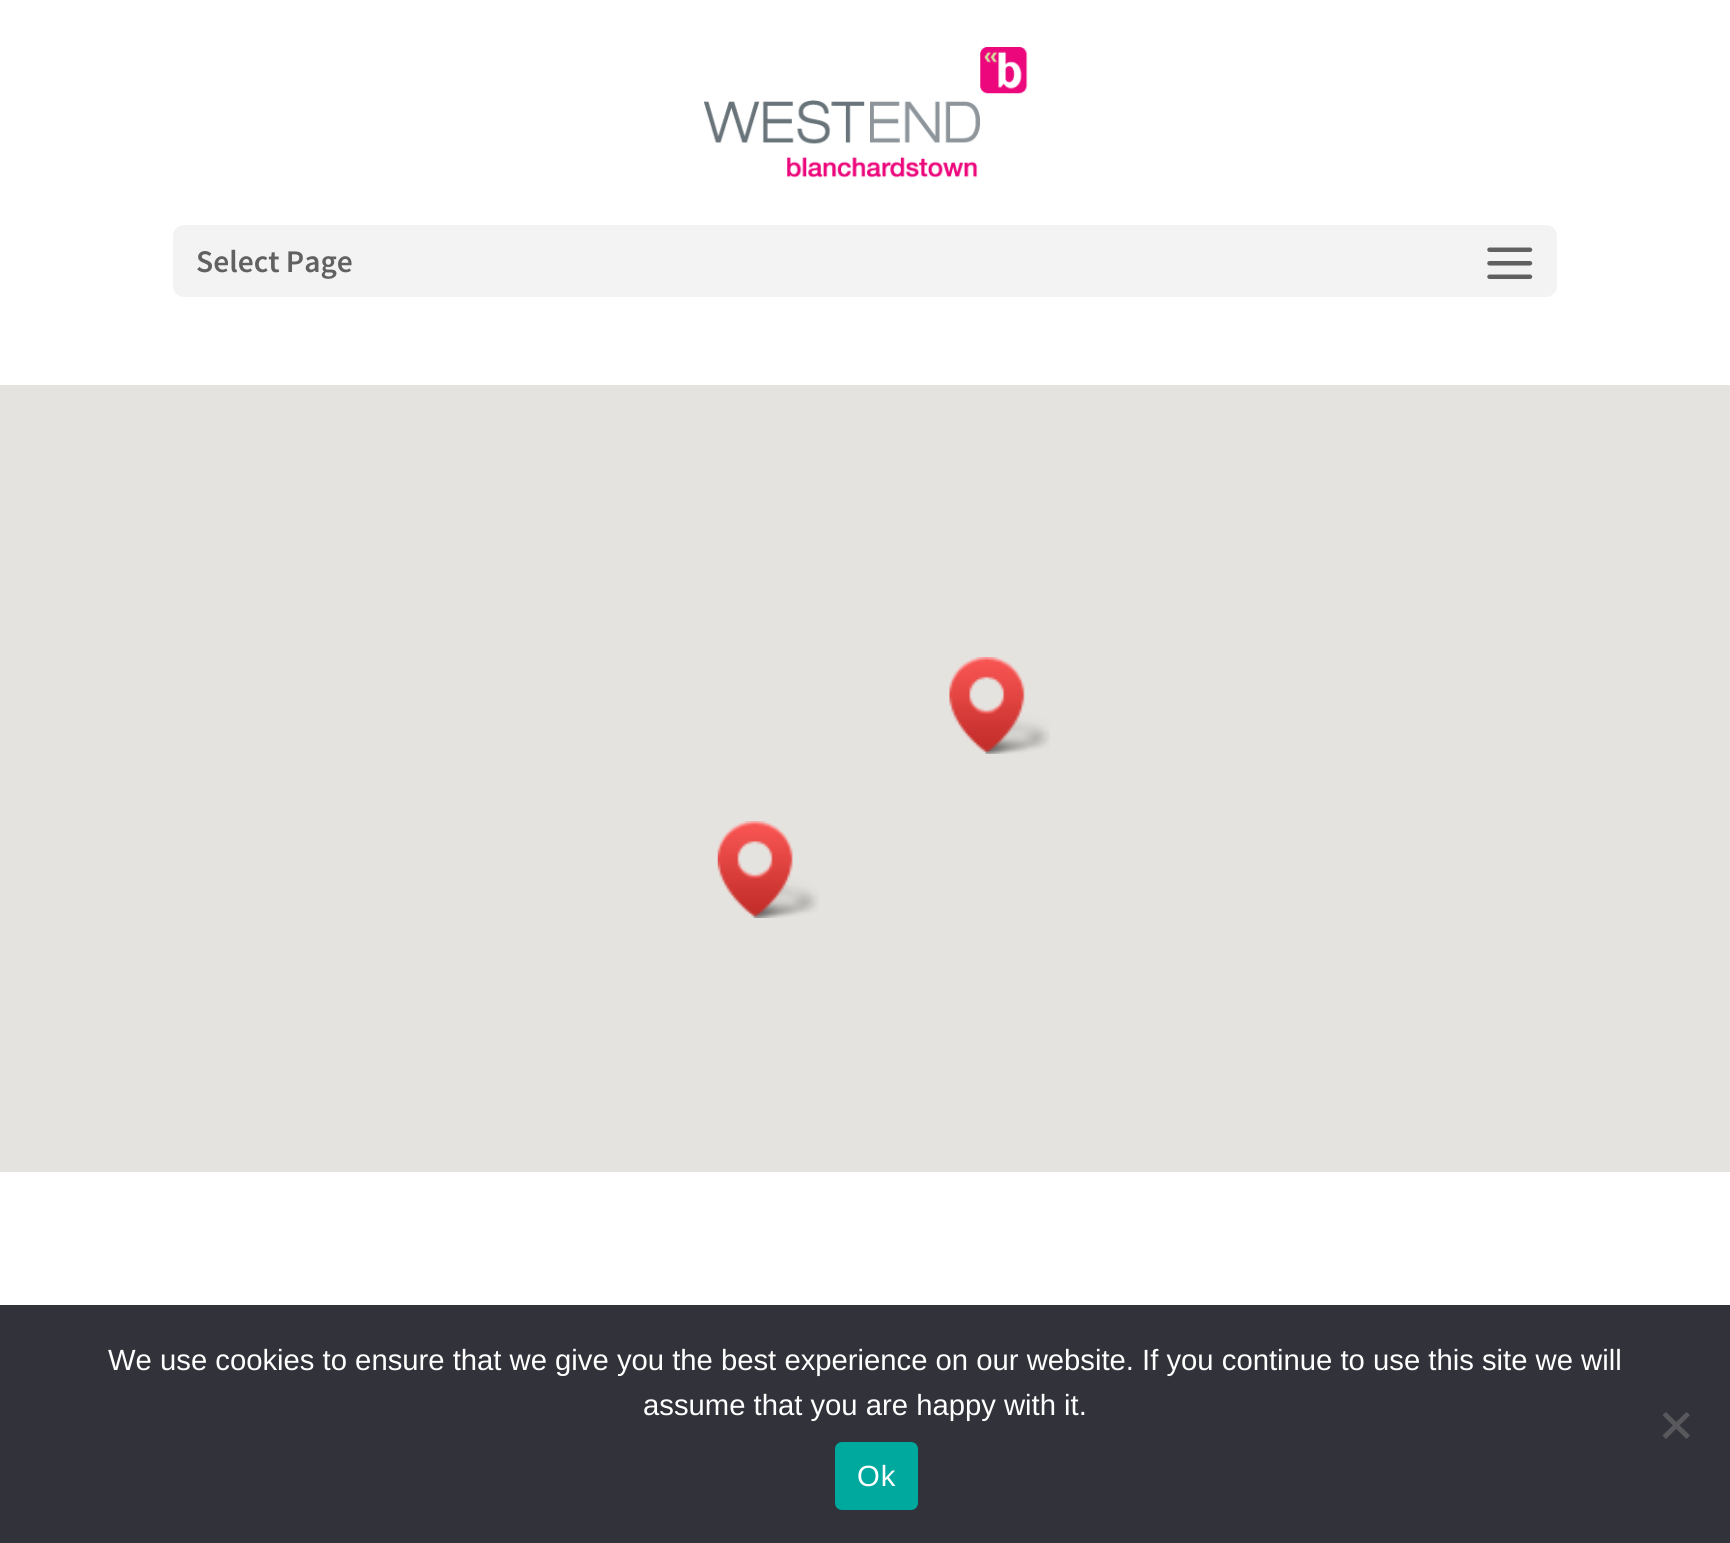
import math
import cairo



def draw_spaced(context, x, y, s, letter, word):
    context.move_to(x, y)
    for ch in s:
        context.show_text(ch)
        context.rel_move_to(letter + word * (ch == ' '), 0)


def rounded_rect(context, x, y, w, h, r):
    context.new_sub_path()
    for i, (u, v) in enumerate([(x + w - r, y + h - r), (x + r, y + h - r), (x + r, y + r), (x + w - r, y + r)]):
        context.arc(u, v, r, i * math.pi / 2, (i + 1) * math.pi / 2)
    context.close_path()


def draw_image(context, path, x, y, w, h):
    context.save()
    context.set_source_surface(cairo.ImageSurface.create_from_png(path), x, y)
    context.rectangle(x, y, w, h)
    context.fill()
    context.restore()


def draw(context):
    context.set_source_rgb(1, 1, 1)
    context.paint()
    draw_image(context, "images/1.png", 704, 47, 324, 131)
    context.set_source_rgb(243 / 255, 243 / 255, 243 / 255)
    rounded_rect(context, 173, 225, 1384, 72, 11)
    context.fill()
    draw_image(context, "images/2.png", 1487, 247, 46, 32)
    context.set_source_rgb(229 / 255, 227 / 255, 223 / 255)
    context.rectangle(0, 385, 1730, 787)
    context.fill()
    draw_image(context, "images/3.png", 949, 657, 101, 97)
    draw_image(context, "images/4.png", 717, 821, 102, 97)
    context.set_source_rgb(50 / 255, 50 / 255, 58 / 255)
    context.rectangle(0, 1305, 1730, 238)
    context.fill()
    context.set_source_rgb(89 / 255, 89 / 255, 93 / 255)
    context.new_path()
    context.move_to(1686.5, 1412)
    context.line_to(1690, 1415)
    context.line_to(1666, 1439)
    context.line_to(1662.5, 1435.5)
    context.close_path()
    context.fill()
    context.new_path()
    context.move_to(1662.5, 1415)
    context.line_to(1666, 1412)
    context.line_to(1690, 1435.5)
    context.line_to(1686.5, 1439)
    context.close_path()
    context.fill()
    context.set_source_rgb(0, 169 / 255, 157 / 255)
    rounded_rect(context, 835, 1442, 83, 68, 7)
    context.fill()
    context.select_font_face("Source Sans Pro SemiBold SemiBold")
    context.set_font_size(31.5)
    context.set_source_rgb(97 / 255, 97 / 255, 97 / 255)
    context.move_to(196, 272)
    context.show_text("Select Page")
    context.select_font_face("Liberation Sans")
    context.set_font_size(29.25)
    context.set_source_rgb(1, 1, 1)
    context.move_to(108, 1370)
    context.show_text("We use cookies to ensure that we give you the best experience on our website. If you continue to use this site we will")
    context.move_to(643, 1415)
    context.show_text("assume that you are happy with it.")
    draw_spaced(context, 857, 1486, "Ok", 1, 0)


surface = cairo.ImageSurface(cairo.Format.RGB24, 1730, 1543)
context = cairo.Context(surface)
options = cairo.FontOptions()
options.set_hint_metrics(cairo.HintMetrics.OFF)
options.set_hint_style(cairo.HintStyle.NONE)
context.set_font_options(options)
context.set_miter_limit(4)
draw(context)
surface.write_to_png("out.png")
